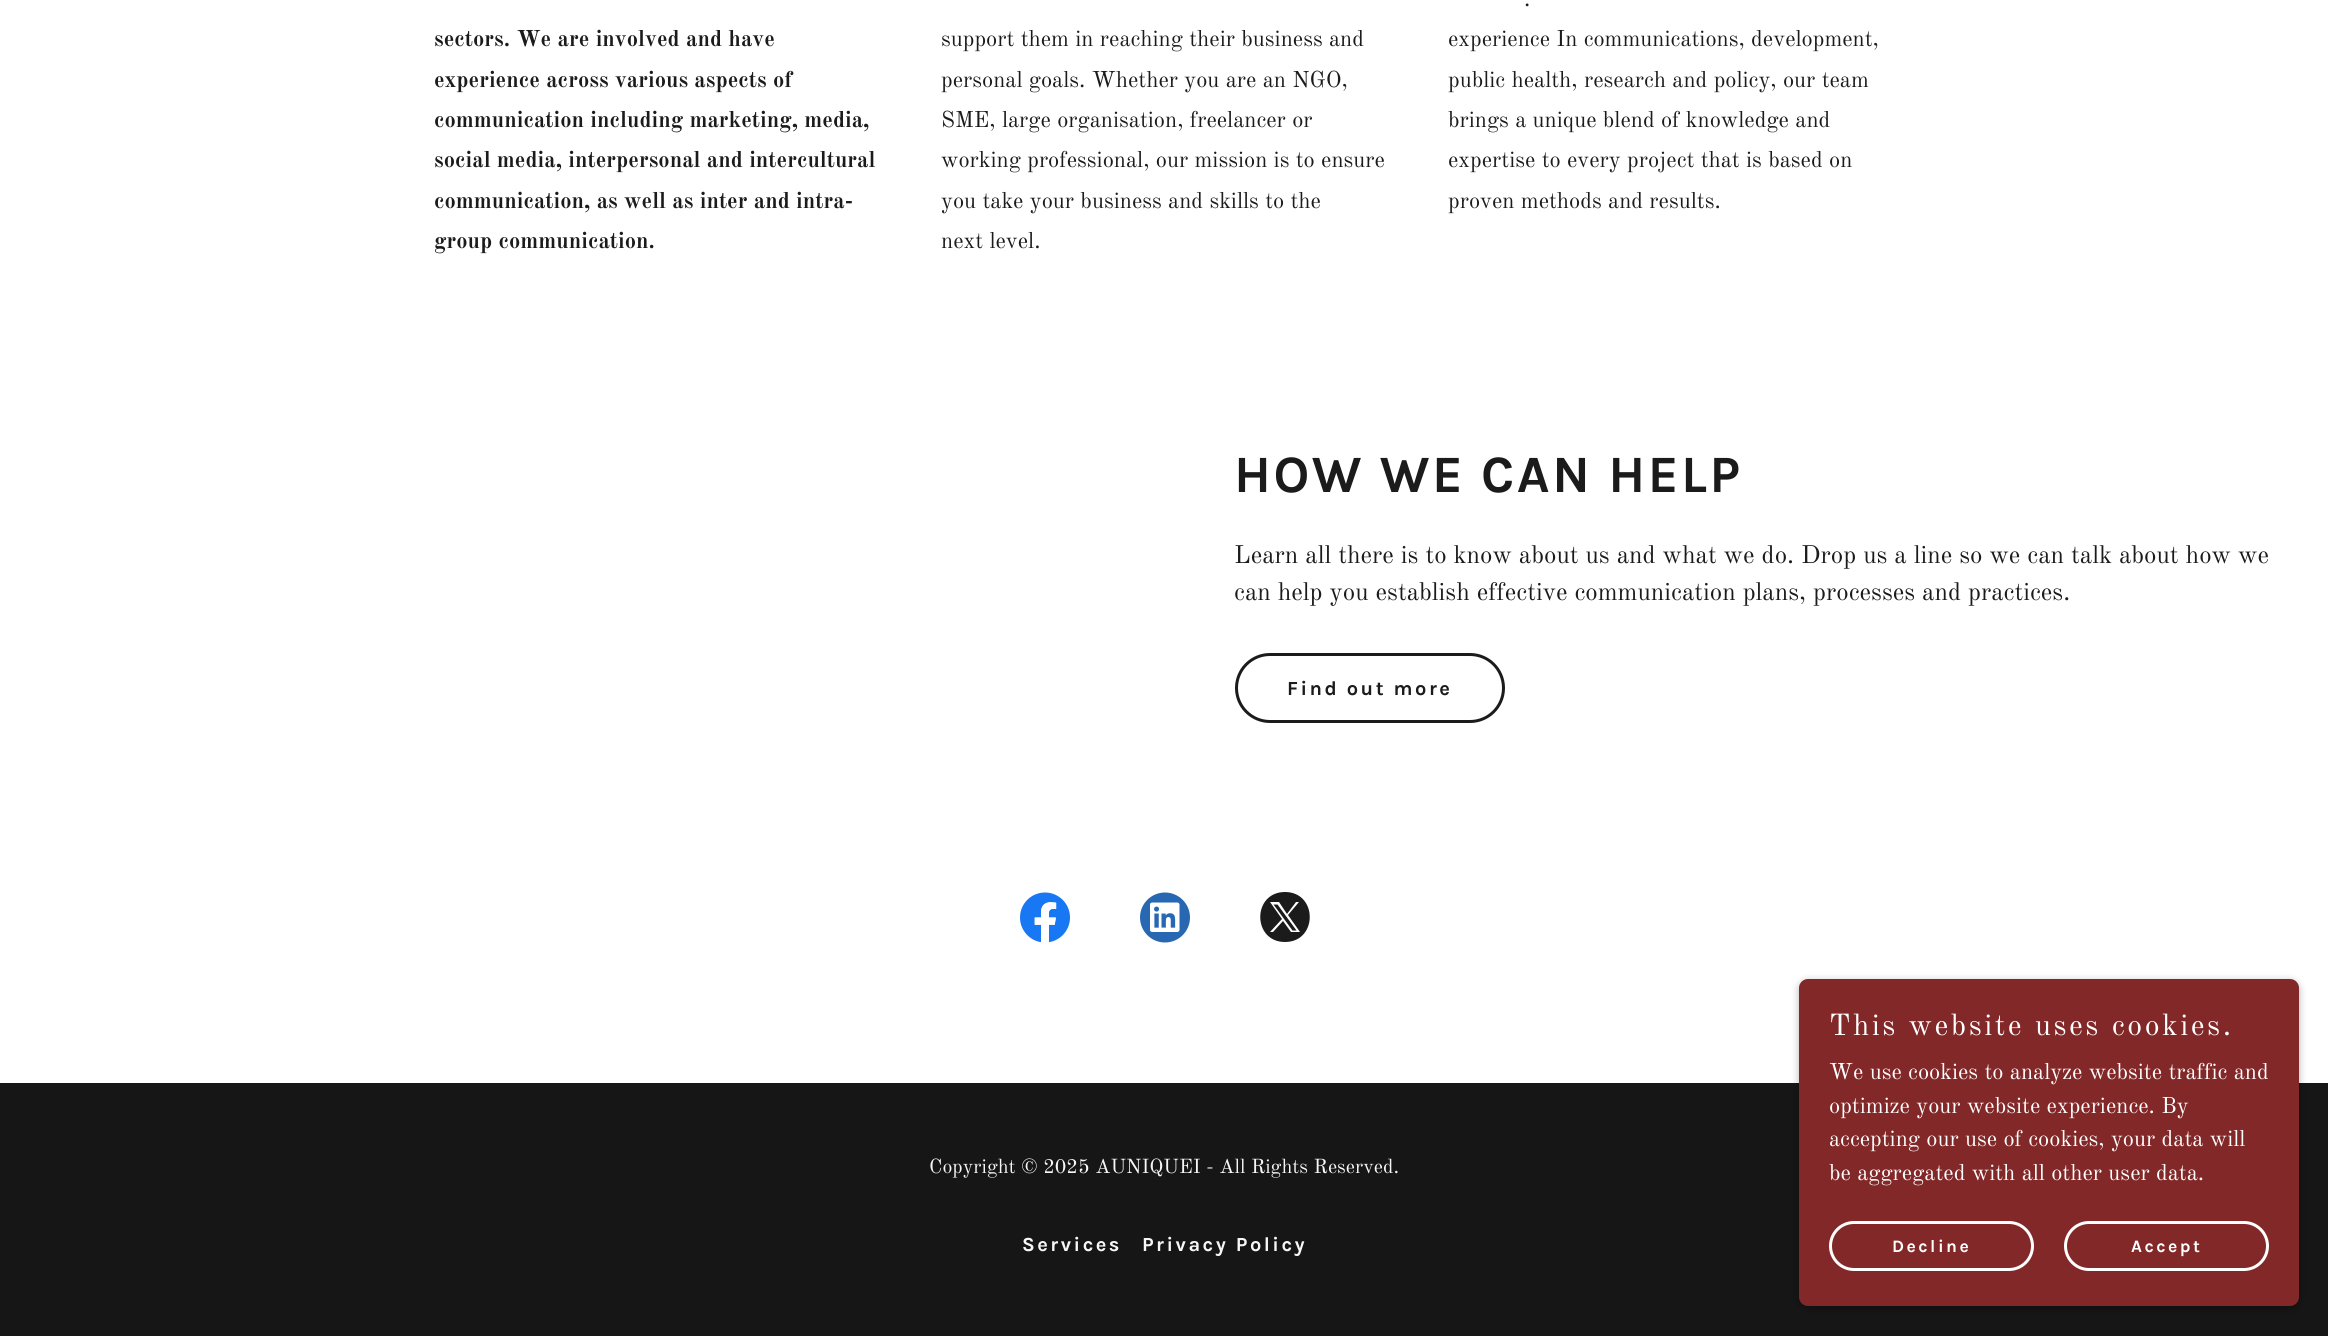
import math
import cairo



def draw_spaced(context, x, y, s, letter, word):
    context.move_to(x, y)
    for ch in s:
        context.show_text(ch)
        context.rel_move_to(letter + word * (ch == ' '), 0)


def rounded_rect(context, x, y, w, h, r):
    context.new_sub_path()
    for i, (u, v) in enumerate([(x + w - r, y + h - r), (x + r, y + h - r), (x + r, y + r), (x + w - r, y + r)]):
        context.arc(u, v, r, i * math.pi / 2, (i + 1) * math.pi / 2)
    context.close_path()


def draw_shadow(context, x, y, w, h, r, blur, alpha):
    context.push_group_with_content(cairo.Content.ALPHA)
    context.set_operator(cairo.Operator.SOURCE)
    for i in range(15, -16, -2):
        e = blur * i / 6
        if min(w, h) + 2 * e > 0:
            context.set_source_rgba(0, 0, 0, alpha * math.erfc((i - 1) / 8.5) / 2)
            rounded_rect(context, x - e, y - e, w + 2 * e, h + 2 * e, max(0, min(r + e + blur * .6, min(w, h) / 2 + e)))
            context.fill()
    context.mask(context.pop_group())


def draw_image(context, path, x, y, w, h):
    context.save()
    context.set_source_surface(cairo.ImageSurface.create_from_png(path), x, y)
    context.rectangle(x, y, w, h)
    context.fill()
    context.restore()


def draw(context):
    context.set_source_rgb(22 / 255, 22 / 255, 22 / 255)
    context.paint()
    context.set_source_rgb(1, 1, 1)
    context.rectangle(0, 0, 2328, 388)
    context.fill()
    context.rectangle(0, 388, 2328, 695)
    context.fill()
    draw_image(context, "images/1.png", 1020, 892, 50, 51)
    draw_image(context, "images/2.png", 1140, 892, 50, 51)
    context.set_source_rgb(27 / 255, 27 / 255, 27 / 255)
    context.new_path()
    context.move_to(1292.5, 930.5)
    context.line_to(1273.5, 904.5)
    context.line_to(1277.5, 904.5)
    context.line_to(1296.5, 930.5)
    context.close_path()
    context.fill()
    context.set_fill_rule(cairo.FillRule.EVEN_ODD)
    context.new_path()
    context.move_to(1285, 942)
    context.curve_to(1318, 942, 1318, 892, 1285, 892)
    context.curve_to(1252, 892, 1252, 942, 1285, 942)
    context.close_path()
    context.move_to(1282, 919)
    context.line_to(1270, 902)
    context.line_to(1279, 902)
    context.line_to(1287, 914)
    context.line_to(1296, 902)
    context.line_to(1299, 902)
    context.line_to(1288, 915)
    context.line_to(1300, 932)
    context.line_to(1291, 932)
    context.line_to(1283, 921)
    context.line_to(1273, 932)
    context.line_to(1270, 932)
    context.close_path()
    context.fill()
    rounded_rect(context, 1236.5, 654.5, 267, 67, 33.5)
    context.set_line_width(3)
    context.stroke()
    context.set_source_rgb(0, 0, 0)
    draw_shadow(context, 1799, 981, 500, 328, 9, 4, 0.3)
    context.set_source_rgb(130 / 255, 40 / 255, 40 / 255)
    rounded_rect(context, 1799, 979, 500, 327, 9)
    context.fill()
    rounded_rect(context, 1830.5, 1222.5, 202, 47, 23.5)
    context.set_source_rgb(1, 1, 1)
    context.stroke()
    rounded_rect(context, 2065.5, 1222.5, 202, 47, 23.5)
    context.stroke()
    context.select_font_face("Old Standard TT", cairo.FontSlant.NORMAL, cairo.FontWeight.BOLD)
    context.set_font_size(22.5)
    context.set_source_rgb(27 / 255, 27 / 255, 27 / 255)
    context.move_to(434, 46)
    context.show_text("sectors. We are involved and have")
    context.move_to(434, 87)
    context.show_text("experience across various aspects of")
    context.move_to(434, 127)
    context.show_text("communication including marketing, media,")
    context.move_to(434, 167)
    context.show_text("social media, interpersonal and intercultural")
    context.move_to(434, 208)
    context.show_text("communication, as well as inter and intra-")
    context.move_to(434, 248)
    context.show_text("group communication.")
    context.select_font_face("Old Standard TT")
    context.move_to(941, 46)
    context.show_text("support them in reaching their business and")
    context.move_to(941, 87)
    context.show_text("personal goals. Whether you are an NGO,")
    context.move_to(941, 127)
    context.show_text("SME, large organisation, freelancer or")
    context.move_to(941, 167)
    context.show_text("working professional, our mission is to ensure")
    context.move_to(941, 208)
    context.show_text("you take your business and skills to the")
    context.move_to(941, 248)
    context.show_text("next level.")
    context.move_to(1524, 6)
    context.show_text(".")
    context.move_to(1448, 46)
    context.show_text("experience In communications, development,")
    context.move_to(1448, 87)
    context.show_text("public health, research and policy, our team")
    context.move_to(1448, 127)
    context.show_text("brings a unique blend of knowledge and")
    context.move_to(1448, 167)
    context.show_text("expertise to every project that is based on")
    context.move_to(1448, 208)
    context.show_text("proven methods and results.")
    context.select_font_face("Karla", cairo.FontSlant.NORMAL, cairo.FontWeight.BOLD)
    context.set_font_size(52.5)
    draw_spaced(context, 1234, 492, "HOW WE CAN HELP", 2.5, 0)
    context.select_font_face("Old Standard TT")
    context.set_font_size(25)
    context.move_to(1234, 563)
    context.show_text("Learn all there is to know about us and what we do. Drop us a line so we can talk about how we")
    context.move_to(1234, 600)
    context.show_text("can help you establish effective communication plans, processes and practices.")
    context.select_font_face("Karla", cairo.FontSlant.NORMAL, cairo.FontWeight.BOLD)
    context.set_font_size(20)
    draw_spaced(context, 1287, 695, "Find out more", 2.5, 0)
    context.select_font_face("Old Standard TT")
    context.set_source_rgb(247 / 255, 247 / 255, 247 / 255)
    context.move_to(929, 1173)
    context.show_text("Copyright © 2025 AUNIQUEI - All Rights Reserved.")
    context.select_font_face("Karla", cairo.FontSlant.NORMAL, cairo.FontWeight.BOLD)
    draw_spaced(context, 1022, 1251, "Services", 2.5, 0)
    draw_spaced(context, 1142, 1251, "Privacy Policy", 2.5, 0)
    context.select_font_face("Old Standard TT")
    context.set_font_size(30)
    context.set_source_rgb(1, 1, 1)
    draw_spaced(context, 1829, 1035, "This website uses cookies.", 2.5, 0)
    context.set_font_size(22.5)
    context.move_to(1829, 1079)
    context.show_text("We use cookies to analyze website traffic and")
    context.move_to(1829, 1113)
    context.show_text("optimize your website experience. By")
    context.move_to(1829, 1146)
    context.show_text("accepting our use of cookies, your data will")
    context.move_to(1829, 1180)
    context.show_text("be aggregated with all other user data.")
    context.select_font_face("Karla", cairo.FontSlant.NORMAL, cairo.FontWeight.BOLD)
    context.set_font_size(17.5)
    draw_spaced(context, 1892, 1252, "Decline", 2.5, 0)
    draw_spaced(context, 2131, 1252, "Accept", 2.5, 0)


surface = cairo.ImageSurface(cairo.Format.RGB24, 2328, 1336)
context = cairo.Context(surface)
options = cairo.FontOptions()
options.set_hint_metrics(cairo.HintMetrics.OFF)
options.set_hint_style(cairo.HintStyle.NONE)
context.set_font_options(options)
context.set_miter_limit(4)
draw(context)
surface.write_to_png("out.png")
